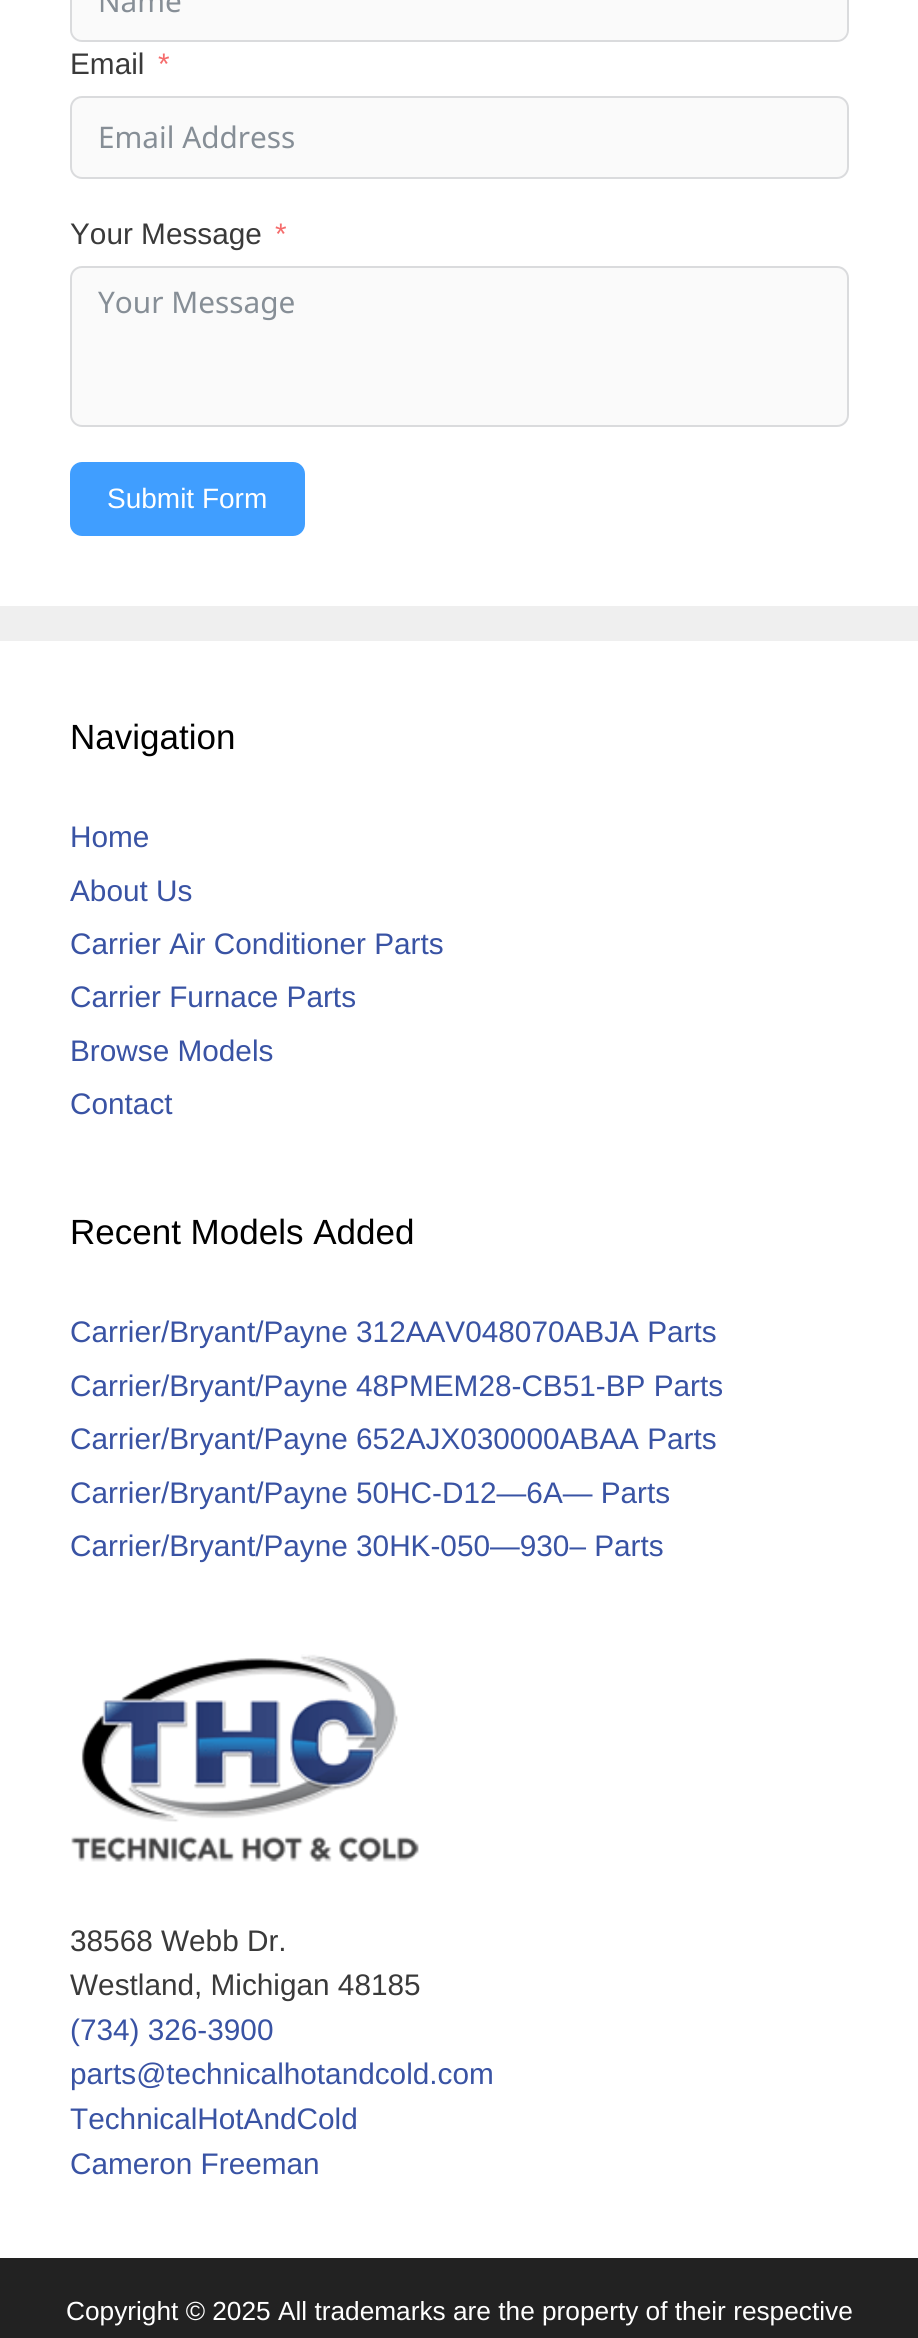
import math
import cairo



def rounded_rect(context, x, y, w, h, r):
    context.new_sub_path()
    for i, (u, v) in enumerate([(x + w - r, y + h - r), (x + r, y + h - r), (x + r, y + r), (x + w - r, y + r)]):
        context.arc(u, v, r, i * math.pi / 2, (i + 1) * math.pi / 2)
    context.close_path()


def draw_image(context, path, x, y, w, h):
    context.save()
    context.set_source_surface(cairo.ImageSurface.create_from_png(path), x, y)
    context.rectangle(x, y, w, h)
    context.fill()
    context.restore()


def draw(context):
    context.set_source_rgb(239 / 255, 239 / 255, 239 / 255)
    context.paint()
    context.set_source_rgb(1, 1, 1)
    context.rectangle(0, 0, 918, 606)
    context.fill()
    context.set_source_rgb(250 / 255, 250 / 255, 250 / 255)
    rounded_rect(context, 72, -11, 775, 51, 11)
    context.fill()
    rounded_rect(context, 71, -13, 777, 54, 11)
    context.set_source_rgb(218 / 255, 219 / 255, 221 / 255)
    context.stroke()
    context.set_source_rgb(250 / 255, 250 / 255, 250 / 255)
    rounded_rect(context, 71, 97, 777, 81, 11)
    context.fill_preserve()
    context.set_source_rgb(218 / 255, 219 / 255, 221 / 255)
    context.stroke()
    context.set_source_rgb(250 / 255, 250 / 255, 250 / 255)
    rounded_rect(context, 71, 267, 777, 159, 11)
    context.fill_preserve()
    context.set_source_rgb(218 / 255, 219 / 255, 221 / 255)
    context.stroke()
    context.set_source_rgb(64 / 255, 158 / 255, 1)
    rounded_rect(context, 70, 462, 235, 74, 12)
    context.fill()
    context.set_source_rgb(1, 1, 1)
    context.rectangle(0, 641, 918, 1617)
    context.fill()
    draw_image(context, "images/1.png", 71, 1654, 348, 208)
    context.set_source_rgb(34 / 255, 34 / 255, 34 / 255)
    context.rectangle(0, 2258, 918, 80)
    context.fill()
    context.select_font_face("Noto Sans")
    context.set_font_size(29.75)
    context.set_source_rgb(134 / 255, 142 / 255, 150 / 255)
    context.move_to(98, 12)
    context.show_text("Name")
    context.select_font_face("Liberation Sans")
    context.set_source_rgb(58 / 255, 58 / 255, 58 / 255)
    context.move_to(70, 74)
    context.show_text("Email")
    context.set_source_rgb(245 / 255, 108 / 255, 108 / 255)
    context.move_to(158, 74)
    context.show_text("*")
    context.select_font_face("Noto Sans")
    context.set_source_rgb(134 / 255, 142 / 255, 150 / 255)
    context.move_to(98, 148)
    context.show_text("Email Address")
    context.select_font_face("Liberation Sans")
    context.set_source_rgb(58 / 255, 58 / 255, 58 / 255)
    context.move_to(70, 244)
    context.show_text("Your Message")
    context.set_source_rgb(245 / 255, 108 / 255, 108 / 255)
    context.move_to(275, 244)
    context.show_text("*")
    context.select_font_face("Noto Sans")
    context.set_source_rgb(134 / 255, 142 / 255, 150 / 255)
    context.move_to(98, 313)
    context.show_text("Your Message")
    context.select_font_face("Liberation Sans")
    context.set_font_size(28)
    context.set_source_rgb(1, 1, 1)
    context.move_to(107, 508)
    context.show_text("Submit Form")
    context.set_font_size(35)
    context.set_source_rgb(0, 0, 0)
    context.move_to(70, 749)
    context.show_text("Navigation")
    context.set_font_size(29.75)
    context.set_source_rgb(57 / 255, 83 / 255, 164 / 255)
    context.move_to(70, 847)
    context.show_text("Home")
    context.move_to(70, 901)
    context.show_text("About Us")
    context.move_to(70, 954)
    context.show_text("Carrier Air Conditioner Parts")
    context.move_to(70, 1007)
    context.show_text("Carrier Furnace Parts")
    context.move_to(70, 1061)
    context.show_text("Browse Models")
    context.move_to(70, 1114)
    context.show_text("Contact")
    context.set_font_size(35)
    context.set_source_rgb(0, 0, 0)
    context.move_to(70, 1244)
    context.show_text("Recent Models Added")
    context.set_font_size(29.75)
    context.set_source_rgb(57 / 255, 83 / 255, 164 / 255)
    context.move_to(70, 1342)
    context.show_text("Carrier/Bryant/Payne 312AAV048070ABJA Parts")
    context.move_to(70, 1396)
    context.show_text("Carrier/Bryant/Payne 48PMEM28-CB51-BP Parts")
    context.move_to(70, 1449)
    context.show_text("Carrier/Bryant/Payne 652AJX030000ABAA Parts")
    context.move_to(70, 1503)
    context.show_text("Carrier/Bryant/Payne 50HC-D12—6A— Parts")
    context.move_to(70, 1556)
    context.show_text("Carrier/Bryant/Payne 30HK-050—930– Parts")
    context.set_source_rgb(58 / 255, 58 / 255, 58 / 255)
    context.move_to(70, 1951)
    context.show_text("38568 Webb Dr.")
    context.move_to(70, 1995)
    context.show_text("Westland, Michigan 48185")
    context.set_source_rgb(57 / 255, 83 / 255, 164 / 255)
    context.move_to(70, 2040)
    context.show_text("(734) 326-3900")
    context.move_to(70, 2084)
    context.show_text("parts@technicalhotandcold.com")
    context.move_to(70, 2129)
    context.show_text("TechnicalHotAndCold")
    context.move_to(70, 2174)
    context.show_text("Cameron Freeman")
    context.set_font_size(26.25)
    context.set_source_rgb(1, 1, 1)
    context.move_to(66, 2320)
    context.show_text("Copyright © 2025 All trademarks are the property of their respective")


surface = cairo.ImageSurface(cairo.Format.RGB24, 918, 2338)
context = cairo.Context(surface)
options = cairo.FontOptions()
options.set_hint_metrics(cairo.HintMetrics.OFF)
options.set_hint_style(cairo.HintStyle.NONE)
context.set_font_options(options)
context.set_miter_limit(4)
draw(context)
surface.write_to_png("out.png")
